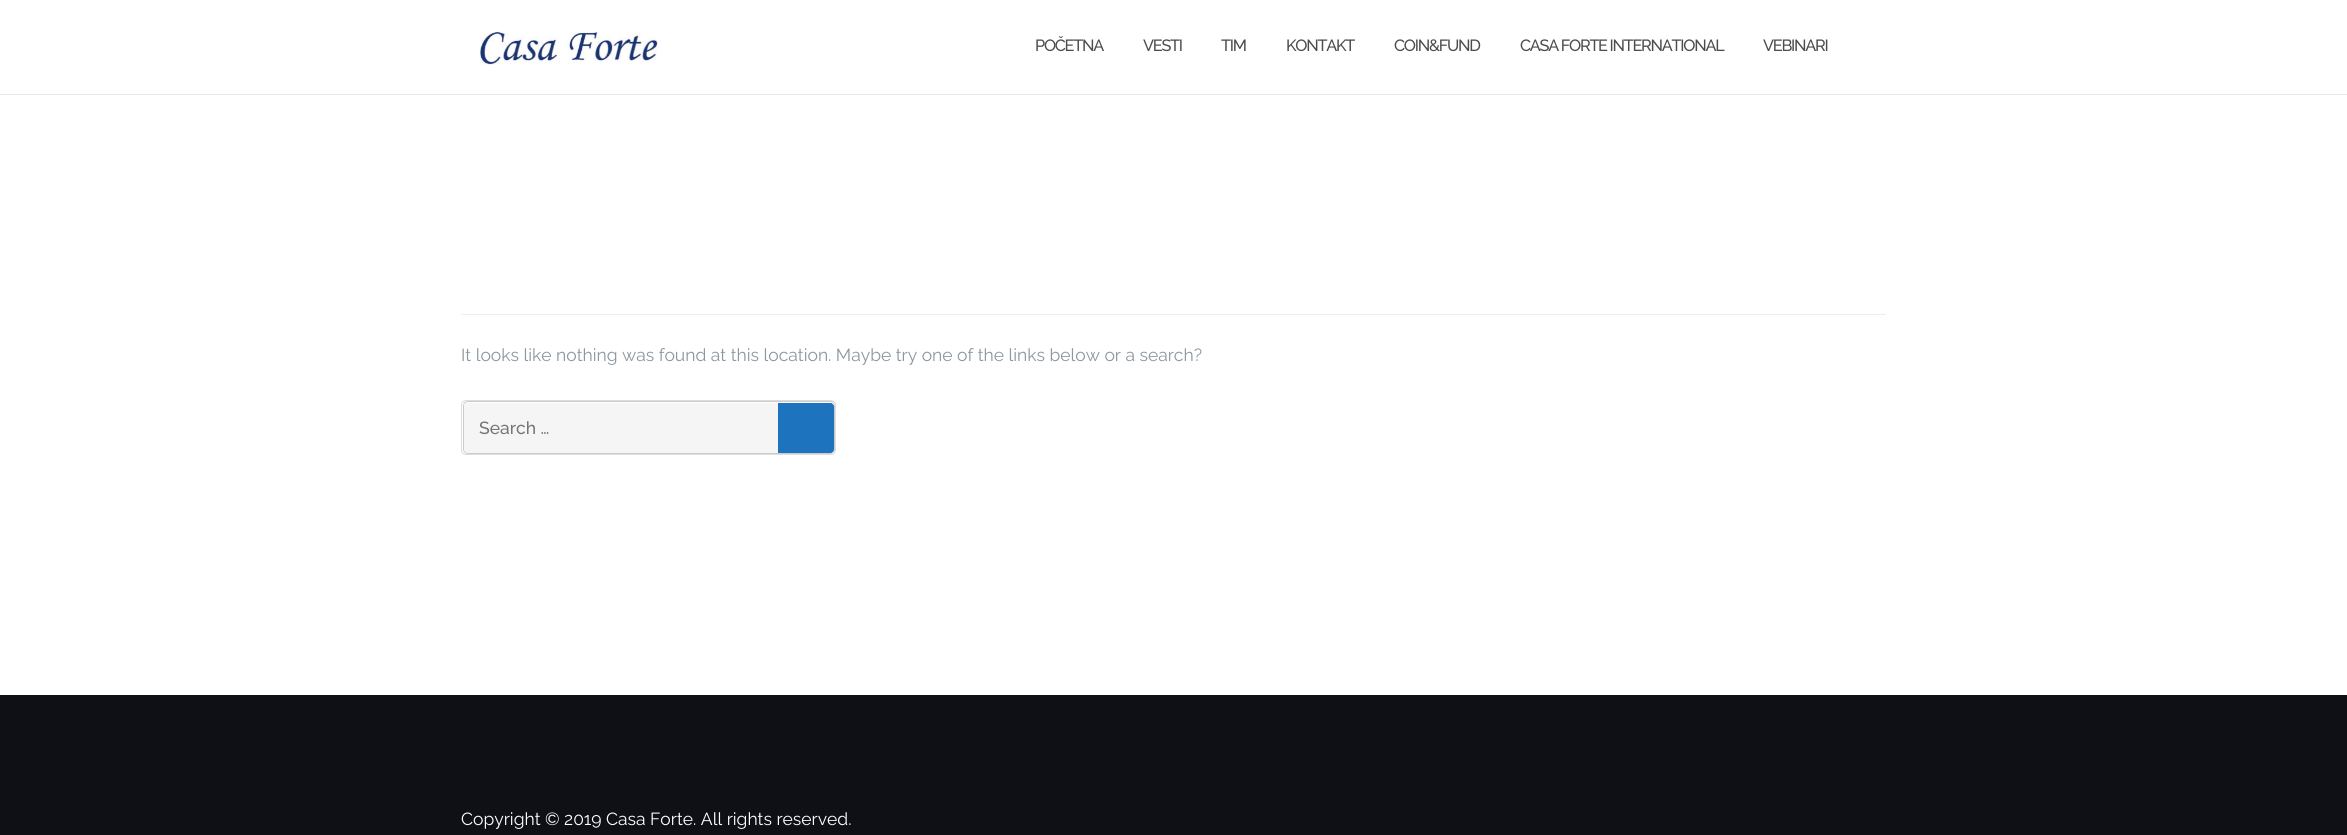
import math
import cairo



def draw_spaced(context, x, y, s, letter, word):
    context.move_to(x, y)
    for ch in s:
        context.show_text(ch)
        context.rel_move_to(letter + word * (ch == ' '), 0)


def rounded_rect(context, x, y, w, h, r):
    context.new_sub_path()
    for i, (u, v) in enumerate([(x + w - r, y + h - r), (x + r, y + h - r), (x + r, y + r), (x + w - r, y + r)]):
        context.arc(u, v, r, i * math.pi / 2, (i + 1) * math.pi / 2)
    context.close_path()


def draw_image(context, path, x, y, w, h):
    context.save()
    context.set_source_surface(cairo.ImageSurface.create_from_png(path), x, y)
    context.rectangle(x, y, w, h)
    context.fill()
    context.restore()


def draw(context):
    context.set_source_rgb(1, 1, 1)
    context.paint()
    context.set_source_rgb(230 / 255, 230 / 255, 230 / 255)
    context.rectangle(0, 94, 2347, 1)
    context.fill()
    draw_image(context, "images/1.png", 480, 31, 178, 34)
    context.set_source_rgb(238 / 255, 238 / 255, 238 / 255)
    context.rectangle(461, 314, 1425, 1)
    context.fill()
    rounded_rect(context, 461.5, 400.5, 374, 54, 4.5)
    context.set_source_rgb(221 / 255, 221 / 255, 221 / 255)
    context.set_line_width(1)
    context.stroke()
    rounded_rect(context, 463.5, 401.5, 371, 52, 4.5)
    context.set_source_rgb(204 / 255, 204 / 255, 204 / 255)
    context.stroke()
    context.set_source_rgb(245 / 255, 245 / 255, 245 / 255)
    context.new_path()
    context.move_to(468, 403)
    context.line_to(778, 403)
    context.line_to(778, 453)
    context.line_to(468, 453)
    context.curve_to(466, 453, 464, 451, 464, 449)
    context.line_to(464, 407)
    context.curve_to(464, 405, 466, 403, 468, 403)
    context.close_path()
    context.fill()
    context.set_source_rgb(30 / 255, 115 / 255, 190 / 255)
    context.new_path()
    context.move_to(778, 403)
    context.line_to(830, 403)
    context.curve_to(832, 403, 834, 405, 834, 407)
    context.line_to(834, 449)
    context.curve_to(834, 451, 832, 453, 830, 453)
    context.line_to(778, 453)
    context.close_path()
    context.fill()
    context.set_fill_rule(cairo.FillRule.EVEN_ODD)
    context.new_path()
    context.move_to(778, 403)
    context.line_to(778, 453)
    context.line_to(830, 453)
    context.curve_to(832, 453, 834, 451, 834, 449)
    context.line_to(834, 407)
    context.curve_to(834, 405, 832, 403, 830, 403)
    context.close_path()
    context.move_to(781, 406)
    context.line_to(831, 406)
    context.line_to(831, 450)
    context.line_to(781, 450)
    context.close_path()
    context.fill()
    context.set_source_rgb(14 / 255, 16 / 255, 21 / 255)
    context.rectangle(0, 695, 2347, 140)
    context.fill()
    context.select_font_face("Raleway Medium")
    context.set_font_size(16.25)
    context.set_source_rgb(76 / 255, 76 / 255, 76 / 255)
    draw_spaced(context, 1035, 51, "POČETNA", -1.25, 0)
    draw_spaced(context, 1143, 51, "VESTI", -1.25, 0)
    draw_spaced(context, 1221, 51, "TIM", -1.25, 0)
    draw_spaced(context, 1286, 51, "KONTAKT", -1.25, 0)
    draw_spaced(context, 1394, 51, "COIN&FUND", -1.25, 0)
    draw_spaced(context, 1520, 51, "CASA FORTE INTERNATIONAL", -1.25, 0)
    draw_spaced(context, 1763, 51, "VEBINARI", -1.25, 0)
    context.select_font_face("Raleway")
    context.set_font_size(17.5)
    context.set_source_rgb(140 / 255, 151 / 255, 158 / 255)
    context.move_to(461, 361)
    context.show_text("It looks like nothing was found at this location. Maybe try one of the links below or a search?")
    context.select_font_face("Raleway Medium")
    context.set_source_rgb(117 / 255, 117 / 255, 117 / 255)
    context.move_to(479, 434)
    context.show_text("Search …")
    context.select_font_face("Raleway")
    context.set_source_rgb(254 / 255, 254 / 255, 254 / 255)
    context.move_to(461, 825)
    context.show_text("Copyright © 2019 Casa Forte. All rights reserved.")


surface = cairo.ImageSurface(cairo.Format.RGB24, 2347, 835)
context = cairo.Context(surface)
options = cairo.FontOptions()
options.set_hint_metrics(cairo.HintMetrics.OFF)
options.set_hint_style(cairo.HintStyle.NONE)
context.set_font_options(options)
context.set_miter_limit(4)
draw(context)
surface.write_to_png("out.png")
